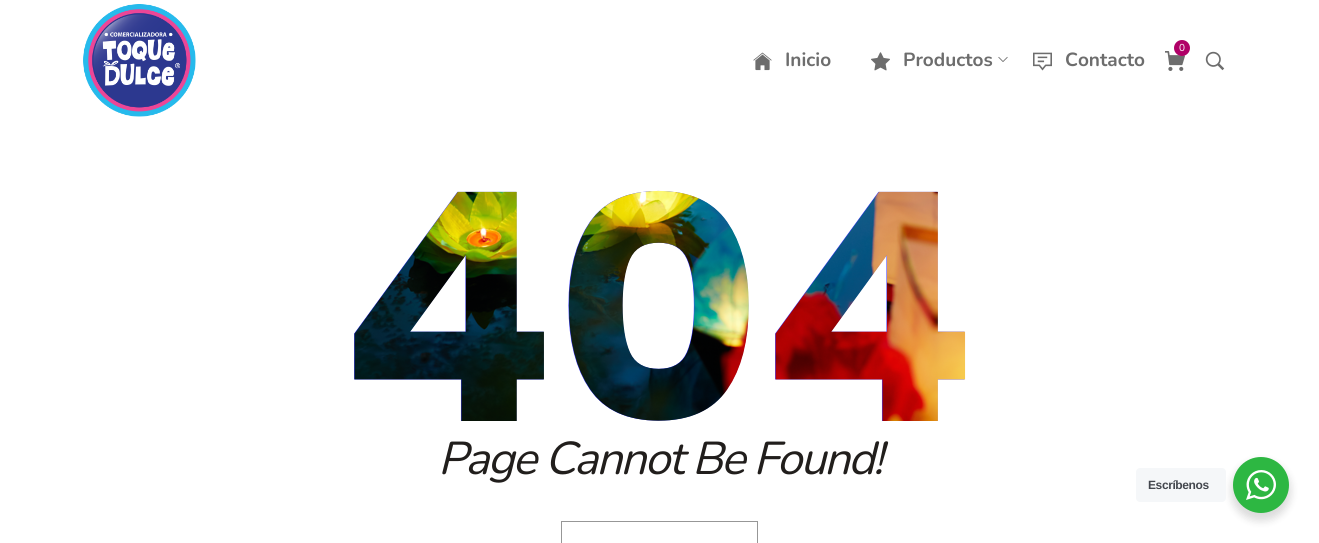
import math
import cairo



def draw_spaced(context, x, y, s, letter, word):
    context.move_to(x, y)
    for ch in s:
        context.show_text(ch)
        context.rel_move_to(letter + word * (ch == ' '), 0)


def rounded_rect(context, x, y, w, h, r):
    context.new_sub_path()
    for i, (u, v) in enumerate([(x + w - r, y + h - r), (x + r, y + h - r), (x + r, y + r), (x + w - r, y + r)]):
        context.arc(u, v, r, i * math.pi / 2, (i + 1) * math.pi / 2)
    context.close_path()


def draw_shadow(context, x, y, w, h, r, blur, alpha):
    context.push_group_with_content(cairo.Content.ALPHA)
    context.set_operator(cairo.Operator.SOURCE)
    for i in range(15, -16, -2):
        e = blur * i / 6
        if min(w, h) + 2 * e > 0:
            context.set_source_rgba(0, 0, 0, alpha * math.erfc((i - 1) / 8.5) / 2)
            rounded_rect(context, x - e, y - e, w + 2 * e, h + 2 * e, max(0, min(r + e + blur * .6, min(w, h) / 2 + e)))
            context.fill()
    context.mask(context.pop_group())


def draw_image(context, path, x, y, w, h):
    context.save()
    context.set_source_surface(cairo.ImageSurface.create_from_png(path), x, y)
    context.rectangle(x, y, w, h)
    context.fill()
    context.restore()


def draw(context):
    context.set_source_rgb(1, 1, 1)
    context.paint()
    draw_image(context, "images/1.png", 83, 4, 113, 113)
    draw_image(context, "images/2.png", 1165, 51, 20, 20)
    context.set_source_rgb(176 / 255, 0, 103 / 255)
    context.arc(1182, 48, 8, 0, 2 * math.pi)
    context.fill()
    draw_image(context, "images/3.png", 753, 52, 19, 19)
    draw_image(context, "images/4.png", 871, 52, 19, 19)
    draw_image(context, "images/5.png", 998, 56, 10, 6)
    draw_image(context, "images/6.png", 1033, 52, 19, 19)
    draw_image(context, "images/7.png", 1205, 51, 20, 20)
    draw_image(context, "images/8.png", 354, 190, 612, 231)
    context.rectangle(561.5, 521.5, 196, 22)
    context.set_source_rgb(151 / 255, 151 / 255, 151 / 255)
    context.set_line_width(1)
    context.stroke()
    context.set_source_rgb(0, 0, 0)
    draw_shadow(context, 1231, 461, 60, 60, 30, 4, 0.14)
    context.set_source_rgb(245 / 255, 247 / 255, 249 / 255)
    rounded_rect(context, 1136, 468, 90, 34, 4)
    context.fill()
    context.set_source_rgb(45 / 255, 183 / 255, 66 / 255)
    context.arc(1261, 485, 28, 0, 2 * math.pi)
    context.fill()
    draw_image(context, "images/9.png", 1246, 470, 30, 30)
    context.select_font_face("Nunito")
    context.set_font_size(10)
    context.set_source_rgb(1, 1, 1)
    context.move_to(1179, 51)
    context.show_text("0")
    context.select_font_face("Nunito", cairo.FontSlant.NORMAL, cairo.FontWeight.BOLD)
    context.set_font_size(19)
    context.set_source_rgb(109 / 255, 109 / 255, 109 / 255)
    context.move_to(785, 66)
    context.show_text("Inicio")
    context.move_to(903, 66)
    context.show_text("Productos")
    context.move_to(1065, 66)
    context.show_text("Contacto")
    context.select_font_face("Nunito", cairo.FontSlant.ITALIC)
    context.set_font_size(46)
    context.set_source_rgb(33 / 255, 30 / 255, 28 / 255)
    draw_spaced(context, 438, 474, "Page Cannot Be Found!", -2, 0)
    context.select_font_face("Liberation Sans", cairo.FontSlant.NORMAL, cairo.FontWeight.BOLD)
    context.set_font_size(12)
    context.set_source_rgb(67 / 255, 71 / 255, 78 / 255)
    draw_spaced(context, 1148, 489, "Escríbenos", -0.4, 0)


surface = cairo.ImageSurface(cairo.Format.RGB24, 1319, 543)
context = cairo.Context(surface)
options = cairo.FontOptions()
options.set_hint_metrics(cairo.HintMetrics.OFF)
options.set_hint_style(cairo.HintStyle.NONE)
context.set_font_options(options)
context.set_miter_limit(4)
draw(context)
surface.write_to_png("out.png")
